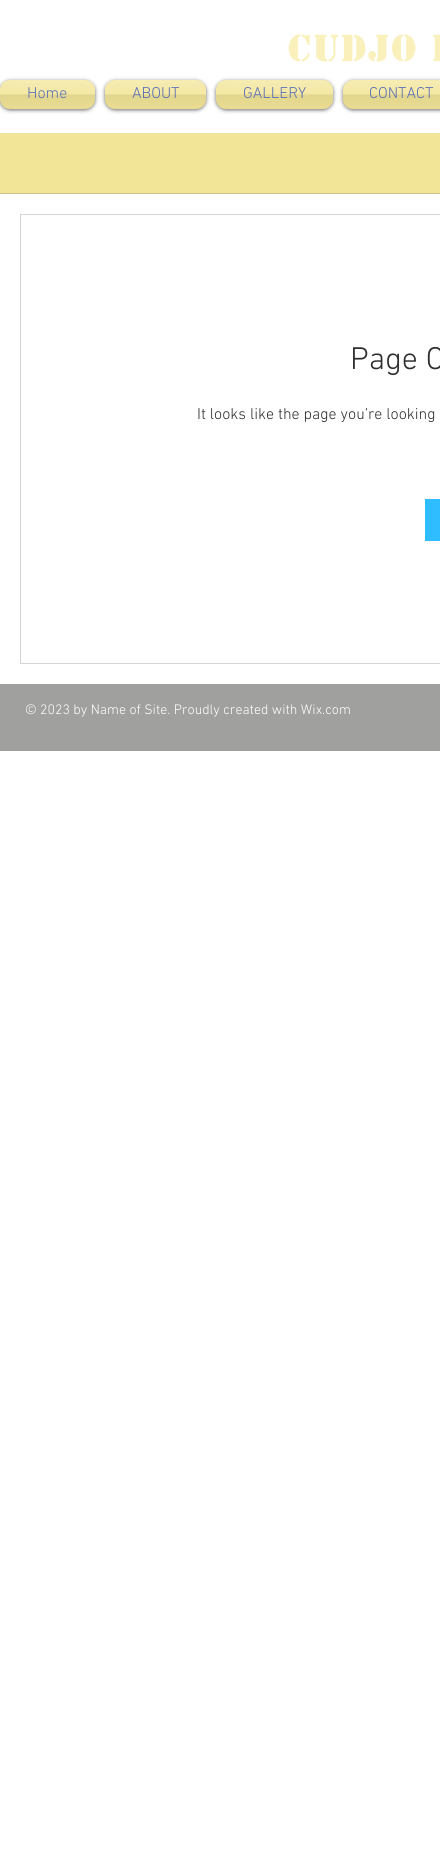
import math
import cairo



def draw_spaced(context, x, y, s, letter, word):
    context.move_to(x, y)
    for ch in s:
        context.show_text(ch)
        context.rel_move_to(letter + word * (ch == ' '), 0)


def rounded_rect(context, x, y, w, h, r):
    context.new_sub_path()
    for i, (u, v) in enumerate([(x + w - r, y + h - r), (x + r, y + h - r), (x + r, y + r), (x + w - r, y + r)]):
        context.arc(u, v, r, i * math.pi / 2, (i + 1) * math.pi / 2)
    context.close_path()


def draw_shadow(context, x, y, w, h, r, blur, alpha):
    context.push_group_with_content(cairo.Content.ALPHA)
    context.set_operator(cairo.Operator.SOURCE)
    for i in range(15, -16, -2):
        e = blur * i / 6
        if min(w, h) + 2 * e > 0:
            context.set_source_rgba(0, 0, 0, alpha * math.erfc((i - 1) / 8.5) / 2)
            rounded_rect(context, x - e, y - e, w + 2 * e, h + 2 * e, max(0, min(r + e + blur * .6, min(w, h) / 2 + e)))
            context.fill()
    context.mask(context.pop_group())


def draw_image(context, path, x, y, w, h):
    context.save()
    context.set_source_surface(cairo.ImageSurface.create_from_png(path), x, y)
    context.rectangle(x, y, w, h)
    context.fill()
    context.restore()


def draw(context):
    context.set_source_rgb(1, 1, 1)
    context.paint()
    context.set_source_rgb(0, 0, 0)
    draw_shadow(context, 0, 81, 95, 29, 10, 2, 0.6)
    context.set_source_rgb(243 / 255, 229 / 255, 152 / 255)
    rounded_rect(context, 0, 80, 95, 29, 10)
    context.fill()
    draw_image(context, "images/1.png", 0, 80, 95, 29)
    context.set_source_rgb(0, 0, 0)
    draw_shadow(context, 105, 81, 101, 29, 10, 2, 0.6)
    context.set_source_rgb(243 / 255, 229 / 255, 152 / 255)
    rounded_rect(context, 105, 80, 101, 29, 10)
    context.fill()
    draw_image(context, "images/2.png", 105, 80, 101, 29)
    context.set_source_rgb(0, 0, 0)
    draw_shadow(context, 216, 81, 117, 29, 10, 2, 0.6)
    context.set_source_rgb(243 / 255, 229 / 255, 152 / 255)
    rounded_rect(context, 216, 80, 117, 29, 10)
    context.fill()
    draw_image(context, "images/3.png", 216, 80, 117, 29)
    context.set_source_rgb(0, 0, 0)
    draw_shadow(context, 343, 81, 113, 29, 10, 2, 0.6)
    context.set_source_rgb(243 / 255, 229 / 255, 152 / 255)
    rounded_rect(context, 343, 80, 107, 29, 10)
    context.fill()
    draw_image(context, "images/4.png", 343, 80, 97, 29)
    context.rectangle(0, 133, 440, 60)
    context.fill()
    context.set_source_rgb(204 / 255, 192 / 255, 131 / 255)
    context.rectangle(0, 193, 440, 1)
    context.fill()
    context.rectangle(20.5, 214.5, 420, 449)
    context.set_source_rgb(213 / 255, 213 / 255, 213 / 255)
    context.set_line_width(1)
    context.stroke()
    context.set_source_rgb(48 / 255, 189 / 255, 1)
    context.rectangle(425, 499, 15, 42)
    context.fill()
    context.set_source_rgb(160 / 255, 160 / 255, 159 / 255)
    context.rectangle(0, 684, 440, 67)
    context.fill()
    context.select_font_face("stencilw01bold", cairo.FontSlant.NORMAL, cairo.FontWeight.BOLD)
    context.set_font_size(35)
    context.set_source_rgb(249 / 255, 240 / 255, 187 / 255)
    draw_spaced(context, 288, 61, "Cudjo L", 1.75, 0)
    context.select_font_face("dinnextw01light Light")
    context.set_font_size(16)
    context.set_source_rgb(86 / 255, 111 / 255, 184 / 255)
    context.move_to(27, 98)
    context.show_text("Home")
    context.move_to(132, 98)
    context.show_text("ABOUT")
    context.move_to(243, 98)
    context.show_text("GALLERY")
    context.move_to(369, 98)
    context.show_text("CONTACT")
    context.set_font_size(32)
    context.set_source_rgb(47 / 255, 46 / 255, 46 / 255)
    context.move_to(350, 369)
    context.show_text("Page C")
    context.set_font_size(16)
    context.move_to(197, 419)
    context.show_text("It looks like the page you’re looking")
    context.set_font_size(14)
    context.set_source_rgb(1, 1, 1)
    context.move_to(25, 714)
    context.show_text("© 2023 by Name of Site. Proudly created with Wix.com")


surface = cairo.ImageSurface(cairo.Format.RGB24, 440, 1865)
context = cairo.Context(surface)
options = cairo.FontOptions()
options.set_hint_metrics(cairo.HintMetrics.OFF)
options.set_hint_style(cairo.HintStyle.NONE)
context.set_font_options(options)
context.set_miter_limit(4)
draw(context)
surface.write_to_png("out.png")
